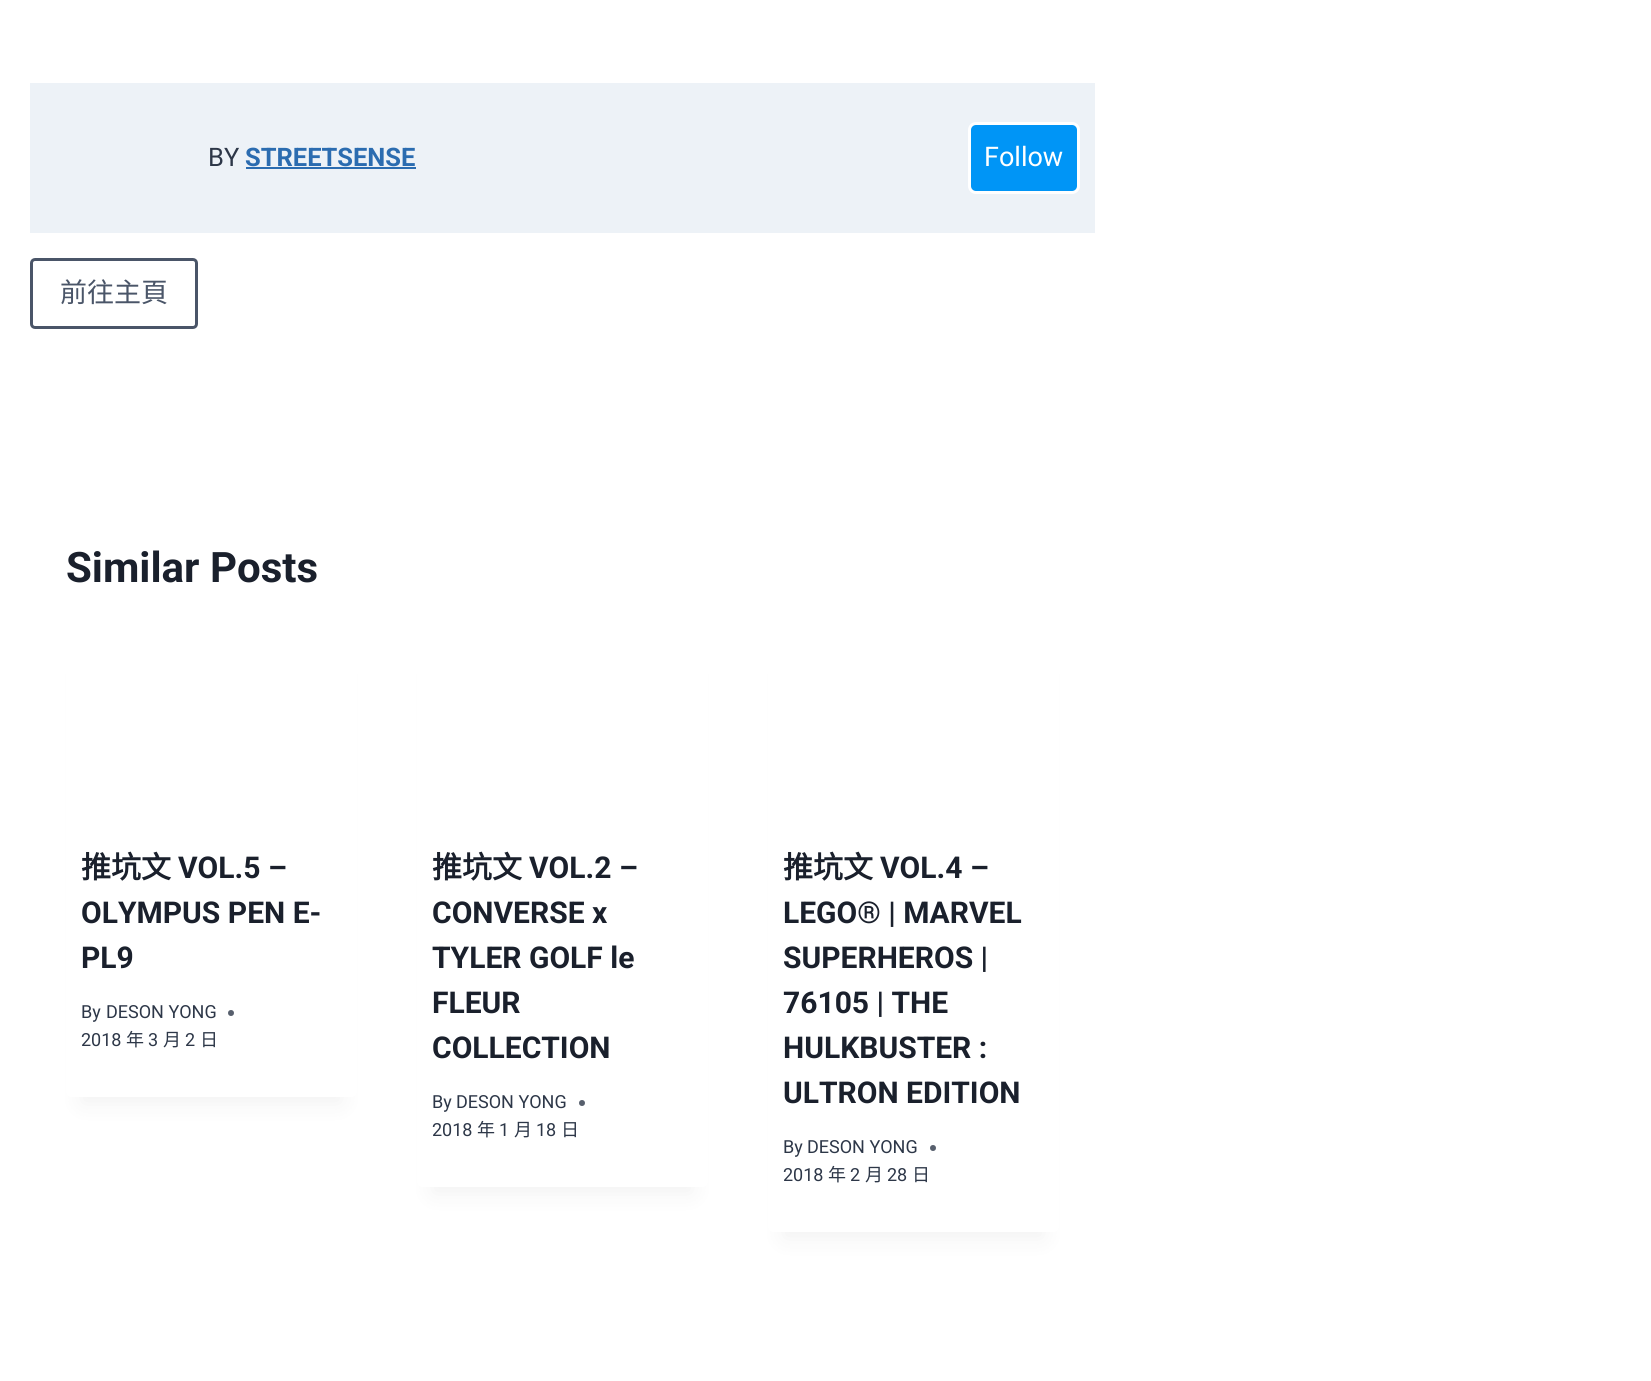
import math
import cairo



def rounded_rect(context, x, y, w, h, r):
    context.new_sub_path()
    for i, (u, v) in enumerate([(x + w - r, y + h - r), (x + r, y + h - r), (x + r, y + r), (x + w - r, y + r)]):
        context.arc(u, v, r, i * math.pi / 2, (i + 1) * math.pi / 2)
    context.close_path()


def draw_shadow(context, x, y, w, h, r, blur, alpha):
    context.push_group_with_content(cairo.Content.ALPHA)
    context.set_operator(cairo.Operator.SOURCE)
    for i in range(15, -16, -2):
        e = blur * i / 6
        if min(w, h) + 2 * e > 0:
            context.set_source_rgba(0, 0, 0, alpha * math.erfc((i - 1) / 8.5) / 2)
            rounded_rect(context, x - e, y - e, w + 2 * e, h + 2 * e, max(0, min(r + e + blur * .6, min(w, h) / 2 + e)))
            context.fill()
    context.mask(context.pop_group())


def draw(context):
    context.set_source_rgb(1, 1, 1)
    context.paint()
    context.set_source_rgb(237 / 255, 242 / 255, 247 / 255)
    context.rectangle(30, 83, 1065, 150)
    context.fill()
    context.set_source_rgb(43 / 255, 108 / 255, 176 / 255)
    context.rectangle(246, 167, 170, 2)
    context.fill()
    context.set_source_rgb(0, 149 / 255, 246 / 255)
    rounded_rect(context, 969.5, 123.5, 109, 69, 6.5)
    context.fill_preserve()
    context.set_source_rgb(1, 1, 1)
    context.set_line_width(3)
    context.stroke()
    rounded_rect(context, 31.5, 259.5, 165, 68, 3.5)
    context.set_source_rgb(74 / 255, 85 / 255, 104 / 255)
    context.stroke()
    context.set_source_rgb(0, 0, 0)
    draw_shadow(context, 81, 674, 261, 430, 0, 11, 0.05)
    context.set_source_rgb(1, 1, 1)
    rounded_rect(context, 66, 636, 291, 461, 6)
    context.fill()
    context.set_source_rgb(87 / 255, 95 / 255, 109 / 255)
    context.arc(231, 1013, 3, 0, 2 * math.pi)
    context.fill()
    context.set_source_rgb(0, 0, 0)
    draw_shadow(context, 432, 674, 261, 520, 0, 11, 0.05)
    context.set_source_rgb(1, 1, 1)
    rounded_rect(context, 417, 636, 291, 551, 6)
    context.fill()
    context.set_source_rgb(87 / 255, 95 / 255, 109 / 255)
    context.arc(582, 1103, 3, 0, 2 * math.pi)
    context.fill()
    context.set_source_rgb(0, 0, 0)
    draw_shadow(context, 783, 674, 261, 565, 0, 11, 0.05)
    context.set_source_rgb(1, 1, 1)
    rounded_rect(context, 768, 636, 291, 596, 6)
    context.fill()
    context.set_source_rgb(87 / 255, 95 / 255, 109 / 255)
    context.arc(933, 1148, 3, 0, 2 * math.pi)
    context.fill()
    context.select_font_face("Roboto")
    context.set_font_size(25.5)
    context.set_source_rgb(45 / 255, 55 / 255, 72 / 255)
    context.move_to(208, 166)
    context.show_text("BY")
    context.select_font_face("Roboto", cairo.FontSlant.NORMAL, cairo.FontWeight.BOLD)
    context.set_source_rgb(43 / 255, 108 / 255, 176 / 255)
    context.move_to(245, 166)
    context.show_text("STREETSENSE")
    context.select_font_face("Roboto")
    context.set_font_size(27)
    context.set_source_rgb(1, 1, 1)
    context.move_to(984, 166)
    context.show_text("Follow")
    context.select_font_face("Noto Sans CJK TC")
    context.set_source_rgb(74 / 255, 85 / 255, 104 / 255)
    context.move_to(60, 302)
    context.show_text("前往主頁")
    context.select_font_face("Roboto", cairo.FontSlant.NORMAL, cairo.FontWeight.BOLD)
    context.set_font_size(42)
    context.set_source_rgb(26 / 255, 32 / 255, 44 / 255)
    context.move_to(66, 582)
    context.show_text("Similar Posts")
    context.select_font_face("Noto Sans CJK TC", cairo.FontSlant.NORMAL, cairo.FontWeight.BOLD)
    context.set_font_size(30)
    context.move_to(81, 878)
    context.show_text("推坑文")
    context.select_font_face("Roboto", cairo.FontSlant.NORMAL, cairo.FontWeight.BOLD)
    context.move_to(178, 878)
    context.show_text("VOL.5 –")
    context.move_to(81, 923)
    context.show_text("OLYMPUS PEN E-")
    context.move_to(81, 968)
    context.show_text("PL9")
    context.select_font_face("Roboto")
    context.set_font_size(18)
    context.set_source_rgb(45 / 255, 55 / 255, 72 / 255)
    context.move_to(81, 1018)
    context.show_text("By")
    context.move_to(106, 1018)
    context.show_text("DESON YONG")
    context.move_to(81, 1046)
    context.show_text("2018")
    context.select_font_face("Noto Sans CJK TC")
    context.move_to(126, 1046)
    context.show_text("年")
    context.select_font_face("Roboto")
    context.move_to(148, 1046)
    context.show_text("3")
    context.select_font_face("Noto Sans CJK TC")
    context.move_to(163, 1046)
    context.show_text("月")
    context.select_font_face("Roboto")
    context.move_to(185, 1046)
    context.show_text("2")
    context.select_font_face("Noto Sans CJK TC")
    context.move_to(200, 1046)
    context.show_text("日")
    context.select_font_face("Noto Sans CJK TC", cairo.FontSlant.NORMAL, cairo.FontWeight.BOLD)
    context.set_font_size(30)
    context.set_source_rgb(26 / 255, 32 / 255, 44 / 255)
    context.move_to(432, 878)
    context.show_text("推坑文")
    context.select_font_face("Roboto", cairo.FontSlant.NORMAL, cairo.FontWeight.BOLD)
    context.move_to(529, 878)
    context.show_text("VOL.2 –")
    context.move_to(432, 923)
    context.show_text("CONVERSE x")
    context.move_to(432, 968)
    context.show_text("TYLER GOLF le")
    context.move_to(432, 1013)
    context.show_text("FLEUR")
    context.move_to(432, 1058)
    context.show_text("COLLECTION")
    context.select_font_face("Roboto")
    context.set_font_size(18)
    context.set_source_rgb(45 / 255, 55 / 255, 72 / 255)
    context.move_to(432, 1108)
    context.show_text("By")
    context.move_to(456, 1108)
    context.show_text("DESON YONG")
    context.move_to(432, 1136)
    context.show_text("2018")
    context.select_font_face("Noto Sans CJK TC")
    context.move_to(477, 1136)
    context.show_text("年")
    context.select_font_face("Roboto")
    context.move_to(499, 1136)
    context.show_text("1")
    context.select_font_face("Noto Sans CJK TC")
    context.move_to(514, 1136)
    context.show_text("月")
    context.select_font_face("Roboto")
    context.move_to(536, 1136)
    context.show_text("18")
    context.select_font_face("Noto Sans CJK TC")
    context.move_to(561, 1136)
    context.show_text("日")
    context.select_font_face("Noto Sans CJK TC", cairo.FontSlant.NORMAL, cairo.FontWeight.BOLD)
    context.set_font_size(30)
    context.set_source_rgb(26 / 255, 32 / 255, 44 / 255)
    context.move_to(783, 878)
    context.show_text("推坑文")
    context.select_font_face("Roboto", cairo.FontSlant.NORMAL, cairo.FontWeight.BOLD)
    context.move_to(880, 878)
    context.show_text("VOL.4 –")
    context.move_to(783, 923)
    context.show_text("LEGO® | MARVEL")
    context.move_to(783, 968)
    context.show_text("SUPERHEROS |")
    context.move_to(783, 1013)
    context.show_text("76105 | THE")
    context.move_to(783, 1058)
    context.show_text("HULKBUSTER :")
    context.move_to(783, 1103)
    context.show_text("ULTRON EDITION")
    context.select_font_face("Roboto")
    context.set_font_size(18)
    context.set_source_rgb(45 / 255, 55 / 255, 72 / 255)
    context.move_to(783, 1153)
    context.show_text("By")
    context.move_to(807, 1153)
    context.show_text("DESON YONG")
    context.move_to(783, 1181)
    context.show_text("2018")
    context.select_font_face("Noto Sans CJK TC")
    context.move_to(828, 1181)
    context.show_text("年")
    context.select_font_face("Roboto")
    context.move_to(850, 1181)
    context.show_text("2")
    context.select_font_face("Noto Sans CJK TC")
    context.move_to(865, 1181)
    context.show_text("月")
    context.select_font_face("Roboto")
    context.move_to(887, 1181)
    context.show_text("28")
    context.select_font_face("Noto Sans CJK TC")
    context.move_to(912, 1181)
    context.show_text("日")


surface = cairo.ImageSurface(cairo.Format.RGB24, 1651, 1381)
context = cairo.Context(surface)
options = cairo.FontOptions()
options.set_hint_metrics(cairo.HintMetrics.OFF)
options.set_hint_style(cairo.HintStyle.NONE)
context.set_font_options(options)
context.set_miter_limit(4)
draw(context)
surface.write_to_png("out.png")
